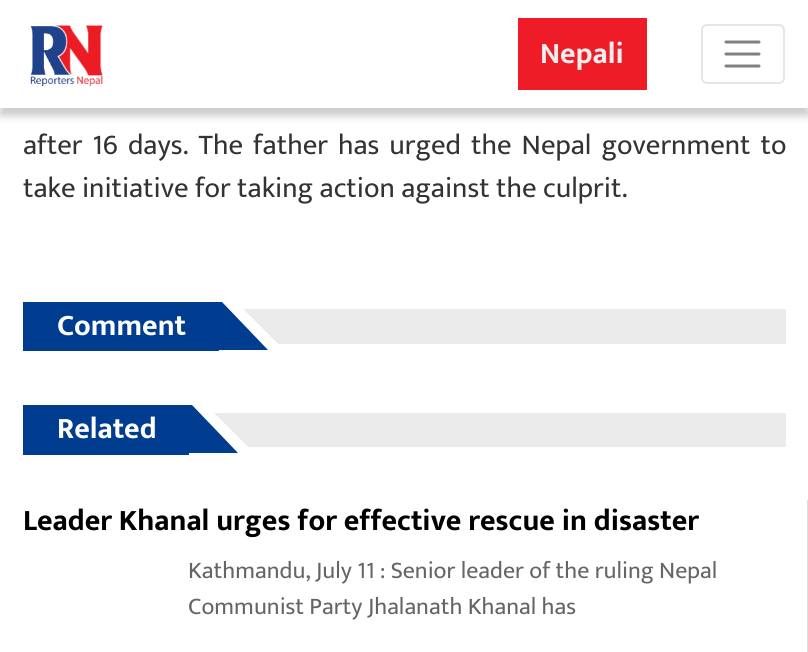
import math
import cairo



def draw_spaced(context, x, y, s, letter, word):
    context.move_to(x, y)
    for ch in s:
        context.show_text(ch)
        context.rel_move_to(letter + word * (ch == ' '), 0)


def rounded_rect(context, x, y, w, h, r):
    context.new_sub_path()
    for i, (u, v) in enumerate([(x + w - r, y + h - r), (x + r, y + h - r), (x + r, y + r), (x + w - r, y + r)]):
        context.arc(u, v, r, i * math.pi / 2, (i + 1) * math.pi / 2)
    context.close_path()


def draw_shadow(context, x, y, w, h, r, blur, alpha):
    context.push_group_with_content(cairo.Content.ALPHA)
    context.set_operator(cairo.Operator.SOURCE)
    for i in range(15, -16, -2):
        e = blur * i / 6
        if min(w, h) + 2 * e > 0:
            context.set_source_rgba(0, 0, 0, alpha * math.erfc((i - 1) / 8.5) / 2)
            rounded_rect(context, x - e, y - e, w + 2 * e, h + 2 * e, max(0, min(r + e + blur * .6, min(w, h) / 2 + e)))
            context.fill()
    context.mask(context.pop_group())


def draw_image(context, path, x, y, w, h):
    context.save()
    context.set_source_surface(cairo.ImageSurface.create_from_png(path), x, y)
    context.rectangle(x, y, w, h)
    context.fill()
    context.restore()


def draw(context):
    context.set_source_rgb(1, 1, 1)
    context.paint()
    context.set_source_rgb(0, 0, 0)
    draw_shadow(context, 0, 8, 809, 108, 0, 4, 0.2)
    context.set_source_rgb(1, 1, 1)
    context.rectangle(0, 1, 808, 107)
    context.fill()
    draw_image(context, "images/1.png", 30, 25, 73, 61)
    context.set_source_rgb(238 / 255, 28 / 255, 39 / 255)
    context.rectangle(518, 18, 129, 72)
    context.fill()
    rounded_rect(context, 702, 25, 82, 58, 5)
    context.set_source_rgb(230 / 255, 230 / 255, 230 / 255)
    context.stroke()
    context.new_path()
    context.move_to(726, 42)
    context.line_to(759, 42)
    context.move_to(726, 54)
    context.line_to(759, 54)
    context.move_to(726, 66)
    context.line_to(759, 66)
    context.set_source_rgb(128 / 255, 128 / 255, 128 / 255)
    context.set_line_width(3)
    context.set_line_cap(cairo.LineCap.ROUND)
    context.stroke()
    context.set_source_rgb(0, 60 / 255, 143 / 255)
    context.rectangle(23, 302, 196, 49)
    context.fill()
    context.set_source_rgb(235 / 255, 235 / 255, 235 / 255)
    context.rectangle(243, 309, 543, 35)
    context.fill()
    context.set_source_rgb(1, 1, 1)
    context.new_path()
    context.move_to(236, 351)
    context.line_to(236, 302)
    context.line_to(285, 351)
    context.close_path()
    context.fill()
    context.set_source_rgb(0, 60 / 255, 143 / 255)
    context.new_path()
    context.move_to(215, 302)
    context.line_to(215, 350)
    context.line_to(261, 350)
    context.line_to(222, 350)
    context.line_to(222, 302)
    context.close_path()
    context.move_to(222, 350)
    context.line_to(222, 302)
    context.line_to(268, 350)
    context.close_path()
    context.fill()
    context.rectangle(23, 405, 166, 50)
    context.fill()
    context.rectangle(189, 405, 3, 48)
    context.fill()
    context.set_source_rgb(235 / 255, 235 / 255, 235 / 255)
    context.rectangle(214, 413, 572, 34)
    context.fill()
    context.set_source_rgb(1, 1, 1)
    context.new_path()
    context.move_to(206, 454)
    context.line_to(206, 405)
    context.line_to(255, 454)
    context.close_path()
    context.fill()
    context.set_source_rgb(0, 60 / 255, 143 / 255)
    context.new_path()
    context.move_to(192, 453)
    context.line_to(192, 405)
    context.line_to(238, 453)
    context.close_path()
    context.fill()
    context.set_source_rgb(221 / 255, 221 / 255, 221 / 255)
    context.rectangle(807, 500, 1, 152)
    context.fill()
    context.select_font_face("Mukta", cairo.FontSlant.NORMAL, cairo.FontWeight.BOLD)
    context.set_font_size(30)
    context.set_source_rgb(238 / 255, 238 / 255, 238 / 255)
    context.move_to(540, 63)
    context.show_text("Nepali")
    context.select_font_face("Mukta")
    context.set_font_size(28.8)
    context.set_source_rgb(51 / 255, 51 / 255, 51 / 255)
    draw_spaced(context, 23, 154, "after 16 days. The father has urged the Nepal government to", 0, 3.6)
    context.move_to(23, 197)
    context.show_text("take initiative for taking action against the culprit.")
    context.select_font_face("Mukta", cairo.FontSlant.NORMAL, cairo.FontWeight.BOLD)
    context.set_font_size(30)
    context.set_source_rgb(1, 1, 1)
    context.move_to(57, 335)
    context.show_text("Comment")
    context.move_to(57, 438)
    context.show_text("Related")
    context.set_source_rgb(0, 0, 0)
    context.move_to(23, 530)
    context.show_text("Leader Khanal urges for effective rescue in disaster")
    context.select_font_face("Mukta")
    context.set_font_size(24)
    context.set_source_rgb(101 / 255, 101 / 255, 101 / 255)
    context.move_to(188, 578)
    context.show_text("Kathmandu, July 11 : Senior leader of the ruling Nepal")
    context.move_to(188, 614)
    context.show_text("Communist Party Jhalanath Khanal has")


surface = cairo.ImageSurface(cairo.Format.RGB24, 808, 652)
context = cairo.Context(surface)
options = cairo.FontOptions()
options.set_hint_metrics(cairo.HintMetrics.OFF)
options.set_hint_style(cairo.HintStyle.NONE)
context.set_font_options(options)
context.set_miter_limit(4)
draw(context)
surface.write_to_png("out.png")
